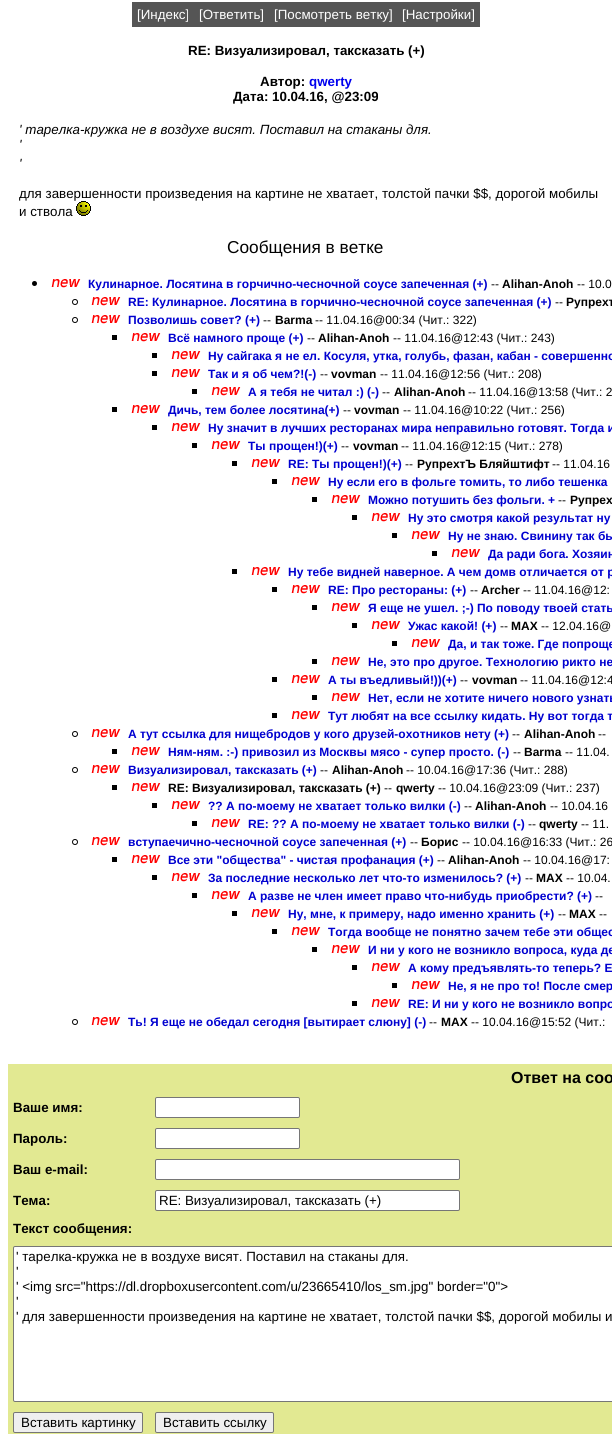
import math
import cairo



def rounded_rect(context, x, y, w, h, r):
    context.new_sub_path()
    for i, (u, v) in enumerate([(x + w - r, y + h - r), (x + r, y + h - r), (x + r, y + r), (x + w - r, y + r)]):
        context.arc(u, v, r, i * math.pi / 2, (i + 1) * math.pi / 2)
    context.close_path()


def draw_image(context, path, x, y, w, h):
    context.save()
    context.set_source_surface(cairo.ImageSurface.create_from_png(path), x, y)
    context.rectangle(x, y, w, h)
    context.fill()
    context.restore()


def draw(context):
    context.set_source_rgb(1, 1, 1)
    context.paint()
    context.set_source_rgb(85 / 255, 85 / 255, 85 / 255)
    context.rectangle(132, 2, 348, 25)
    context.fill()
    draw_image(context, "images/1.png", 76, 201, 15, 15)
    context.set_source_rgb(0, 0, 0)
    context.arc(34.5, 283.5, 2.5, 0, 2 * math.pi)
    context.fill()
    draw_image(context, "images/2.png", 51, 279, 30, 9)
    context.arc(75, 302, 2.5, 0, 2 * math.pi)
    context.set_line_width(1)
    context.stroke()
    draw_image(context, "images/2.png", 91, 297, 30, 9)
    context.arc(75, 320, 2.5, 0, 2 * math.pi)
    context.stroke()
    draw_image(context, "images/2.png", 91, 315, 30, 9)
    context.rectangle(112, 335, 5, 5)
    context.fill()
    draw_image(context, "images/2.png", 131, 333, 30, 9)
    context.rectangle(152, 353, 5, 5)
    context.fill()
    draw_image(context, "images/2.png", 171, 351, 30, 9)
    context.rectangle(152, 371, 5, 5)
    context.fill()
    draw_image(context, "images/2.png", 171, 369, 30, 9)
    context.rectangle(192, 389, 5, 5)
    context.fill()
    draw_image(context, "images/2.png", 211, 387, 30, 9)
    context.rectangle(112, 407, 5, 5)
    context.fill()
    draw_image(context, "images/2.png", 131, 405, 30, 9)
    context.rectangle(152, 425, 5, 5)
    context.fill()
    draw_image(context, "images/2.png", 171, 423, 30, 9)
    context.rectangle(192, 443, 5, 5)
    context.fill()
    draw_image(context, "images/2.png", 211, 441, 30, 9)
    context.rectangle(232, 461, 5, 5)
    context.fill()
    draw_image(context, "images/2.png", 251, 459, 30, 9)
    context.rectangle(272, 479, 5, 5)
    context.fill()
    draw_image(context, "images/2.png", 291, 477, 30, 9)
    context.rectangle(312, 497, 5, 5)
    context.fill()
    draw_image(context, "images/2.png", 331, 495, 30, 9)
    context.rectangle(352, 515, 5, 5)
    context.fill()
    draw_image(context, "images/2.png", 371, 513, 30, 9)
    context.rectangle(392, 533, 5, 5)
    context.fill()
    draw_image(context, "images/2.png", 411, 531, 30, 9)
    context.rectangle(432, 551, 5, 5)
    context.fill()
    draw_image(context, "images/2.png", 451, 549, 30, 9)
    context.rectangle(232, 569, 5, 5)
    context.fill()
    draw_image(context, "images/2.png", 251, 567, 30, 9)
    context.rectangle(272, 587, 5, 5)
    context.fill()
    draw_image(context, "images/2.png", 291, 585, 30, 9)
    context.rectangle(312, 605, 5, 5)
    context.fill()
    draw_image(context, "images/2.png", 331, 603, 30, 9)
    context.rectangle(352, 623, 5, 5)
    context.fill()
    draw_image(context, "images/2.png", 371, 621, 30, 9)
    context.rectangle(392, 641, 5, 5)
    context.fill()
    draw_image(context, "images/2.png", 411, 639, 30, 9)
    context.rectangle(312, 659, 5, 5)
    context.fill()
    draw_image(context, "images/2.png", 331, 657, 30, 9)
    context.rectangle(272, 677, 5, 5)
    context.fill()
    draw_image(context, "images/2.png", 291, 675, 30, 9)
    context.rectangle(312, 695, 5, 5)
    context.fill()
    draw_image(context, "images/2.png", 331, 693, 30, 9)
    context.rectangle(272, 713, 5, 5)
    context.fill()
    draw_image(context, "images/2.png", 291, 711, 30, 9)
    context.arc(75, 734, 2.5, 0, 2 * math.pi)
    context.stroke()
    draw_image(context, "images/2.png", 91, 729, 30, 9)
    context.rectangle(112, 749, 5, 5)
    context.fill()
    draw_image(context, "images/2.png", 131, 747, 30, 9)
    context.arc(75, 770, 2.5, 0, 2 * math.pi)
    context.stroke()
    draw_image(context, "images/2.png", 91, 765, 30, 9)
    context.rectangle(112, 785, 5, 5)
    context.fill()
    draw_image(context, "images/2.png", 131, 783, 30, 9)
    context.rectangle(152, 803, 5, 5)
    context.fill()
    draw_image(context, "images/2.png", 171, 801, 30, 9)
    context.rectangle(192, 821, 5, 5)
    context.fill()
    draw_image(context, "images/2.png", 211, 819, 30, 9)
    context.arc(75, 842, 2.5, 0, 2 * math.pi)
    context.stroke()
    draw_image(context, "images/2.png", 91, 837, 30, 9)
    context.rectangle(112, 857, 5, 5)
    context.fill()
    draw_image(context, "images/2.png", 131, 855, 30, 9)
    context.rectangle(152, 875, 5, 5)
    context.fill()
    draw_image(context, "images/2.png", 171, 873, 30, 9)
    context.rectangle(192, 893, 5, 5)
    context.fill()
    draw_image(context, "images/2.png", 211, 891, 30, 9)
    context.rectangle(232, 911, 5, 5)
    context.fill()
    draw_image(context, "images/2.png", 251, 909, 30, 9)
    context.rectangle(272, 929, 5, 5)
    context.fill()
    draw_image(context, "images/2.png", 291, 927, 30, 9)
    context.rectangle(312, 947, 5, 5)
    context.fill()
    draw_image(context, "images/2.png", 331, 945, 30, 9)
    context.rectangle(352, 965, 5, 5)
    context.fill()
    draw_image(context, "images/2.png", 371, 963, 30, 9)
    context.rectangle(392, 983, 5, 5)
    context.fill()
    draw_image(context, "images/2.png", 411, 981, 30, 9)
    context.rectangle(352, 1001, 5, 5)
    context.fill()
    draw_image(context, "images/2.png", 371, 999, 30, 9)
    context.arc(75, 1022, 2.5, 0, 2 * math.pi)
    context.stroke()
    draw_image(context, "images/2.png", 91, 1017, 30, 9)
    context.set_source_rgb(226 / 255, 233 / 255, 146 / 255)
    context.rectangle(8, 1064, 604, 28)
    context.fill()
    context.rectangle(8, 1092, 604, 31)
    context.fill()
    context.set_source_rgb(1, 1, 1)
    rounded_rect(context, 155.5, 1097.5, 144, 20, 1.5)
    context.fill_preserve()
    context.set_source_rgb(118 / 255, 118 / 255, 118 / 255)
    context.stroke()
    context.set_source_rgb(226 / 255, 233 / 255, 146 / 255)
    context.rectangle(8, 1123, 604, 31)
    context.fill()
    context.set_source_rgb(1, 1, 1)
    rounded_rect(context, 155.5, 1128.5, 144, 20, 1.5)
    context.fill_preserve()
    context.set_source_rgb(118 / 255, 118 / 255, 118 / 255)
    context.stroke()
    context.set_source_rgb(226 / 255, 233 / 255, 146 / 255)
    context.rectangle(8, 1154, 604, 31)
    context.fill()
    context.set_source_rgb(1, 1, 1)
    rounded_rect(context, 155.5, 1159.5, 304, 20, 1.5)
    context.fill_preserve()
    context.set_source_rgb(118 / 255, 118 / 255, 118 / 255)
    context.stroke()
    context.set_source_rgb(226 / 255, 233 / 255, 146 / 255)
    context.rectangle(8, 1185, 604, 249)
    context.fill()
    context.set_source_rgb(1, 1, 1)
    rounded_rect(context, 155.5, 1190.5, 304, 20, 1.5)
    context.fill_preserve()
    context.set_source_rgb(118 / 255, 118 / 255, 118 / 255)
    context.stroke()
    context.set_source_rgb(1, 1, 1)
    rounded_rect(context, 13.5, 1246.5, 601, 155, 1.5)
    context.fill_preserve()
    context.set_source_rgb(118 / 255, 118 / 255, 118 / 255)
    context.stroke()
    context.set_source_rgb(239 / 255, 239 / 255, 239 / 255)
    rounded_rect(context, 13.5, 1412.5, 129, 20, 1.5)
    context.fill_preserve()
    context.set_source_rgb(118 / 255, 118 / 255, 118 / 255)
    context.stroke()
    context.set_source_rgb(239 / 255, 239 / 255, 239 / 255)
    rounded_rect(context, 155.5, 1412.5, 118, 20, 1.5)
    context.fill_preserve()
    context.set_source_rgb(118 / 255, 118 / 255, 118 / 255)
    context.stroke()
    context.select_font_face("Liberation Sans")
    context.set_font_size(13.35)
    context.set_source_rgb(1, 1, 1)
    context.move_to(137, 19)
    context.show_text("[Индекс]")
    context.move_to(199, 19)
    context.show_text("[Ответить]")
    context.move_to(274, 19)
    context.show_text("[Посмотреть ветку]")
    context.move_to(402, 19)
    context.show_text("[Настройки]")
    context.select_font_face("Liberation Sans", cairo.FontSlant.NORMAL, cairo.FontWeight.BOLD)
    context.set_source_rgb(0, 0, 0)
    context.move_to(188, 55)
    context.show_text("RE: Визуализировал, таксказать (+)")
    context.move_to(260, 86)
    context.show_text("Автор:")
    context.set_source_rgb(0, 0, 238 / 255)
    context.move_to(309, 86)
    context.show_text("qwerty")
    context.set_source_rgb(0, 0, 0)
    context.move_to(233, 101)
    context.show_text("Дата: 10.04.16, @23:09")
    context.select_font_face("Liberation Sans", cairo.FontSlant.ITALIC)
    context.move_to(19, 134)
    context.show_text("' тарелка-кружка не в воздухе висят. Поставил на стаканы для.")
    context.move_to(19, 149)
    context.show_text("'")
    context.move_to(19, 168)
    context.show_text("'")
    context.select_font_face("Liberation Sans")
    context.move_to(19, 198)
    context.show_text("для завершенности произведения на картине не хватает, толстой пачки $$, дорогой мобилы")
    context.move_to(19, 216)
    context.show_text("и ствола")
    context.set_font_size(17.25)
    context.move_to(227, 253)
    context.show_text("Сообщения в ветке")
    context.select_font_face("Liberation Sans", cairo.FontSlant.NORMAL, cairo.FontWeight.BOLD)
    context.set_font_size(12)
    context.set_source_rgb(0, 0, 208 / 255)
    context.move_to(88, 288)
    context.show_text("Кулинарное. Лосятина в горчично-чесночной соусе запеченная (+)")
    context.select_font_face("Liberation Sans")
    context.set_source_rgb(0, 0, 0)
    context.move_to(491, 288)
    context.show_text("--")
    context.select_font_face("Liberation Sans", cairo.FontSlant.NORMAL, cairo.FontWeight.BOLD)
    context.move_to(502, 288)
    context.show_text("Alihan-Anoh")
    context.select_font_face("Liberation Sans")
    context.move_to(577, 288)
    context.show_text("-- 10.0")
    context.select_font_face("Liberation Sans", cairo.FontSlant.NORMAL, cairo.FontWeight.BOLD)
    context.set_source_rgb(0, 0, 208 / 255)
    context.move_to(128, 306)
    context.show_text("RE: Кулинарное. Лосятина в горчично-чесночной соусе запеченная (+)")
    context.select_font_face("Liberation Sans")
    context.set_source_rgb(0, 0, 0)
    context.move_to(555, 306)
    context.show_text("--")
    context.select_font_face("Liberation Sans", cairo.FontSlant.NORMAL, cairo.FontWeight.BOLD)
    context.move_to(566, 306)
    context.show_text("Рупрехт")
    context.set_source_rgb(0, 0, 208 / 255)
    context.move_to(128, 324)
    context.show_text("Позволишь совет? (+)")
    context.select_font_face("Liberation Sans")
    context.set_source_rgb(0, 0, 0)
    context.move_to(263, 324)
    context.show_text("--")
    context.select_font_face("Liberation Sans", cairo.FontSlant.NORMAL, cairo.FontWeight.BOLD)
    context.move_to(275, 324)
    context.show_text("Barma")
    context.select_font_face("Liberation Sans")
    context.move_to(315, 324)
    context.show_text("-- 11.04.16@00:34 (Чит.: 322)")
    context.select_font_face("Liberation Sans", cairo.FontSlant.NORMAL, cairo.FontWeight.BOLD)
    context.set_source_rgb(0, 0, 208 / 255)
    context.move_to(168, 342)
    context.show_text("Всё намного проще (+)")
    context.select_font_face("Liberation Sans")
    context.set_source_rgb(0, 0, 0)
    context.move_to(307, 342)
    context.show_text("--")
    context.select_font_face("Liberation Sans", cairo.FontSlant.NORMAL, cairo.FontWeight.BOLD)
    context.move_to(318, 342)
    context.show_text("Alihan-Anoh")
    context.select_font_face("Liberation Sans")
    context.move_to(393, 342)
    context.show_text("-- 11.04.16@12:43 (Чит.: 243)")
    context.select_font_face("Liberation Sans", cairo.FontSlant.NORMAL, cairo.FontWeight.BOLD)
    context.set_source_rgb(0, 0, 208 / 255)
    context.move_to(208, 360)
    context.show_text("Ну сайгака я не ел. Косуля, утка, голубь, фазан, кабан - совершенно")
    context.move_to(208, 378)
    context.show_text("Так и я об чем?!(-)")
    context.select_font_face("Liberation Sans")
    context.set_source_rgb(0, 0, 0)
    context.move_to(320, 378)
    context.show_text("--")
    context.select_font_face("Liberation Sans", cairo.FontSlant.NORMAL, cairo.FontWeight.BOLD)
    context.move_to(331, 378)
    context.show_text("vovman")
    context.select_font_face("Liberation Sans")
    context.move_to(380, 378)
    context.show_text("-- 11.04.16@12:56 (Чит.: 208)")
    context.select_font_face("Liberation Sans", cairo.FontSlant.NORMAL, cairo.FontWeight.BOLD)
    context.set_source_rgb(0, 0, 208 / 255)
    context.move_to(248, 396)
    context.show_text("А я тебя не читал :) (-)")
    context.select_font_face("Liberation Sans")
    context.set_source_rgb(0, 0, 0)
    context.move_to(382, 396)
    context.show_text("--")
    context.select_font_face("Liberation Sans", cairo.FontSlant.NORMAL, cairo.FontWeight.BOLD)
    context.move_to(394, 396)
    context.show_text("Alihan-Anoh")
    context.select_font_face("Liberation Sans")
    context.move_to(468, 396)
    context.show_text("-- 11.04.16@13:58 (Чит.: 2")
    context.select_font_face("Liberation Sans", cairo.FontSlant.NORMAL, cairo.FontWeight.BOLD)
    context.set_source_rgb(0, 0, 208 / 255)
    context.move_to(168, 414)
    context.show_text("Дичь, тем более лосятина(+)")
    context.select_font_face("Liberation Sans")
    context.set_source_rgb(0, 0, 0)
    context.move_to(343, 414)
    context.show_text("--")
    context.select_font_face("Liberation Sans", cairo.FontSlant.NORMAL, cairo.FontWeight.BOLD)
    context.move_to(354, 414)
    context.show_text("vovman")
    context.select_font_face("Liberation Sans")
    context.move_to(403, 414)
    context.show_text("-- 11.04.16@10:22 (Чит.: 256)")
    context.select_font_face("Liberation Sans", cairo.FontSlant.NORMAL, cairo.FontWeight.BOLD)
    context.set_source_rgb(0, 0, 208 / 255)
    context.move_to(208, 432)
    context.show_text("Ну значит в лучших ресторанах мира неправильно готовят. Тогда и")
    context.move_to(248, 450)
    context.show_text("Ты прощен!)(+)")
    context.select_font_face("Liberation Sans")
    context.set_source_rgb(0, 0, 0)
    context.move_to(341, 450)
    context.show_text("--")
    context.select_font_face("Liberation Sans", cairo.FontSlant.NORMAL, cairo.FontWeight.BOLD)
    context.move_to(353, 450)
    context.show_text("vovman")
    context.select_font_face("Liberation Sans")
    context.move_to(401, 450)
    context.show_text("-- 11.04.16@12:15 (Чит.: 278)")
    context.select_font_face("Liberation Sans", cairo.FontSlant.NORMAL, cairo.FontWeight.BOLD)
    context.set_source_rgb(0, 0, 208 / 255)
    context.move_to(288, 468)
    context.show_text("RE: Ты прощен!)(+)")
    context.select_font_face("Liberation Sans")
    context.set_source_rgb(0, 0, 0)
    context.move_to(405, 468)
    context.show_text("--")
    context.select_font_face("Liberation Sans", cairo.FontSlant.NORMAL, cairo.FontWeight.BOLD)
    context.move_to(417, 468)
    context.show_text("РупрехтЪ Бляйштифт")
    context.select_font_face("Liberation Sans")
    context.move_to(552, 468)
    context.show_text("-- 11.04.16")
    context.select_font_face("Liberation Sans", cairo.FontSlant.NORMAL, cairo.FontWeight.BOLD)
    context.set_source_rgb(0, 0, 208 / 255)
    context.move_to(328, 486)
    context.show_text("Ну если его в фольге томить, то либо тешенка")
    context.move_to(368, 504)
    context.show_text("Можно потушить без фольги. +")
    context.select_font_face("Liberation Sans")
    context.set_source_rgb(0, 0, 0)
    context.move_to(558, 504)
    context.show_text("--")
    context.select_font_face("Liberation Sans", cairo.FontSlant.NORMAL, cairo.FontWeight.BOLD)
    context.move_to(570, 504)
    context.show_text("Рупрех")
    context.set_source_rgb(0, 0, 208 / 255)
    context.move_to(408, 522)
    context.show_text("Ну это смотря какой результат ну")
    context.move_to(448, 540)
    context.show_text("Ну не знаю. Свинину так бы")
    context.move_to(488, 558)
    context.show_text("Да ради бога. Хозяин")
    context.move_to(288, 576)
    context.show_text("Ну тебе видней наверное. А чем домв отличается от р")
    context.move_to(328, 594)
    context.show_text("RE: Про рестораны: (+)")
    context.select_font_face("Liberation Sans")
    context.set_source_rgb(0, 0, 0)
    context.move_to(470, 594)
    context.show_text("--")
    context.select_font_face("Liberation Sans", cairo.FontSlant.NORMAL, cairo.FontWeight.BOLD)
    context.move_to(481, 594)
    context.show_text("Archer")
    context.select_font_face("Liberation Sans")
    context.move_to(523, 594)
    context.show_text("-- 11.04.16@12:")
    context.select_font_face("Liberation Sans", cairo.FontSlant.NORMAL, cairo.FontWeight.BOLD)
    context.set_source_rgb(0, 0, 208 / 255)
    context.move_to(368, 612)
    context.show_text("Я еще не ушел. ;-) По поводу твоей стать")
    context.move_to(408, 630)
    context.show_text("Ужас какой! (+)")
    context.select_font_face("Liberation Sans")
    context.set_source_rgb(0, 0, 0)
    context.move_to(500, 630)
    context.show_text("--")
    context.select_font_face("Liberation Sans", cairo.FontSlant.NORMAL, cairo.FontWeight.BOLD)
    context.move_to(511, 630)
    context.show_text("MAX")
    context.select_font_face("Liberation Sans")
    context.move_to(541, 630)
    context.show_text("-- 12.04.16@")
    context.select_font_face("Liberation Sans", cairo.FontSlant.NORMAL, cairo.FontWeight.BOLD)
    context.set_source_rgb(0, 0, 208 / 255)
    context.move_to(448, 648)
    context.show_text("Да, и так тоже. Где попроще")
    context.move_to(368, 666)
    context.show_text("Не, это про другое. Технологию рикто не")
    context.move_to(328, 684)
    context.show_text("А ты въедливый!))(+)")
    context.select_font_face("Liberation Sans")
    context.set_source_rgb(0, 0, 0)
    context.move_to(460, 684)
    context.show_text("--")
    context.select_font_face("Liberation Sans", cairo.FontSlant.NORMAL, cairo.FontWeight.BOLD)
    context.move_to(472, 684)
    context.show_text("vovman")
    context.select_font_face("Liberation Sans")
    context.move_to(520, 684)
    context.show_text("-- 11.04.16@12:4")
    context.select_font_face("Liberation Sans", cairo.FontSlant.NORMAL, cairo.FontWeight.BOLD)
    context.set_source_rgb(0, 0, 208 / 255)
    context.move_to(368, 702)
    context.show_text("Нет, если не хотите ничего нового узнать")
    context.move_to(328, 720)
    context.show_text("Тут любят на все ссылку кидать. Ну вот тогда т")
    context.move_to(128, 738)
    context.show_text("А тут ссылка для нищебродов у кого друзей-охотников нету (+)")
    context.select_font_face("Liberation Sans")
    context.set_source_rgb(0, 0, 0)
    context.move_to(512, 738)
    context.show_text("--")
    context.select_font_face("Liberation Sans", cairo.FontSlant.NORMAL, cairo.FontWeight.BOLD)
    context.move_to(524, 738)
    context.show_text("Alihan-Anoh")
    context.select_font_face("Liberation Sans")
    context.move_to(598, 738)
    context.show_text("--")
    context.select_font_face("Liberation Sans", cairo.FontSlant.NORMAL, cairo.FontWeight.BOLD)
    context.set_source_rgb(0, 0, 208 / 255)
    context.move_to(168, 756)
    context.show_text("Ням-ням. :-) привозил из Москвы мясо - супер просто. (-)")
    context.select_font_face("Liberation Sans")
    context.set_source_rgb(0, 0, 0)
    context.move_to(513, 756)
    context.show_text("--")
    context.select_font_face("Liberation Sans", cairo.FontSlant.NORMAL, cairo.FontWeight.BOLD)
    context.move_to(524, 756)
    context.show_text("Barma")
    context.select_font_face("Liberation Sans")
    context.move_to(565, 756)
    context.show_text("-- 11.04.")
    context.select_font_face("Liberation Sans", cairo.FontSlant.NORMAL, cairo.FontWeight.BOLD)
    context.set_source_rgb(0, 0, 208 / 255)
    context.move_to(128, 774)
    context.show_text("Визуализировал, таксказать (+)")
    context.select_font_face("Liberation Sans")
    context.set_source_rgb(0, 0, 0)
    context.move_to(320, 774)
    context.show_text("--")
    context.select_font_face("Liberation Sans", cairo.FontSlant.NORMAL, cairo.FontWeight.BOLD)
    context.move_to(332, 774)
    context.show_text("Alihan-Anoh")
    context.select_font_face("Liberation Sans")
    context.move_to(406, 774)
    context.show_text("-- 10.04.16@17:36 (Чит.: 288)")
    context.select_font_face("Liberation Sans", cairo.FontSlant.NORMAL, cairo.FontWeight.BOLD)
    context.move_to(168, 792)
    context.show_text("RE: Визуализировал, таксказать (+)")
    context.select_font_face("Liberation Sans")
    context.move_to(384, 792)
    context.show_text("--")
    context.select_font_face("Liberation Sans", cairo.FontSlant.NORMAL, cairo.FontWeight.BOLD)
    context.move_to(396, 792)
    context.show_text("qwerty")
    context.select_font_face("Liberation Sans")
    context.move_to(438, 792)
    context.show_text("-- 10.04.16@23:09 (Чит.: 237)")
    context.select_font_face("Liberation Sans", cairo.FontSlant.NORMAL, cairo.FontWeight.BOLD)
    context.set_source_rgb(0, 0, 208 / 255)
    context.move_to(208, 810)
    context.show_text("?? А по-моему не хватает только вилки (-)")
    context.select_font_face("Liberation Sans")
    context.set_source_rgb(0, 0, 0)
    context.move_to(464, 810)
    context.show_text("--")
    context.select_font_face("Liberation Sans", cairo.FontSlant.NORMAL, cairo.FontWeight.BOLD)
    context.move_to(475, 810)
    context.show_text("Alihan-Anoh")
    context.select_font_face("Liberation Sans")
    context.move_to(550, 810)
    context.show_text("-- 10.04.16")
    context.select_font_face("Liberation Sans", cairo.FontSlant.NORMAL, cairo.FontWeight.BOLD)
    context.set_source_rgb(0, 0, 208 / 255)
    context.move_to(248, 828)
    context.show_text("RE: ?? А по-моему не хватает только вилки (-)")
    context.select_font_face("Liberation Sans")
    context.set_source_rgb(0, 0, 0)
    context.move_to(528, 828)
    context.show_text("--")
    context.select_font_face("Liberation Sans", cairo.FontSlant.NORMAL, cairo.FontWeight.BOLD)
    context.move_to(539, 828)
    context.show_text("qwerty")
    context.select_font_face("Liberation Sans")
    context.move_to(581, 828)
    context.show_text("-- 11.")
    context.select_font_face("Liberation Sans", cairo.FontSlant.NORMAL, cairo.FontWeight.BOLD)
    context.set_source_rgb(0, 0, 208 / 255)
    context.move_to(128, 846)
    context.show_text("вступаечично-чесночной соусе запеченная (+)")
    context.select_font_face("Liberation Sans")
    context.set_source_rgb(0, 0, 0)
    context.move_to(410, 846)
    context.show_text("--")
    context.select_font_face("Liberation Sans", cairo.FontSlant.NORMAL, cairo.FontWeight.BOLD)
    context.move_to(421, 846)
    context.show_text("Борис")
    context.select_font_face("Liberation Sans")
    context.move_to(462, 846)
    context.show_text("-- 10.04.16@16:33 (Чит.: 26")
    context.select_font_face("Liberation Sans", cairo.FontSlant.NORMAL, cairo.FontWeight.BOLD)
    context.set_source_rgb(0, 0, 208 / 255)
    context.move_to(168, 864)
    context.show_text("Все эти \"общества\" - чистая профанация (+)")
    context.select_font_face("Liberation Sans")
    context.set_source_rgb(0, 0, 0)
    context.move_to(437, 864)
    context.show_text("--")
    context.select_font_face("Liberation Sans", cairo.FontSlant.NORMAL, cairo.FontWeight.BOLD)
    context.move_to(448, 864)
    context.show_text("Alihan-Anoh")
    context.select_font_face("Liberation Sans")
    context.move_to(523, 864)
    context.show_text("-- 10.04.16@17:")
    context.select_font_face("Liberation Sans", cairo.FontSlant.NORMAL, cairo.FontWeight.BOLD)
    context.set_source_rgb(0, 0, 208 / 255)
    context.move_to(208, 882)
    context.show_text("За последние несколько лет что-то изменилось? (+)")
    context.select_font_face("Liberation Sans")
    context.set_source_rgb(0, 0, 0)
    context.move_to(525, 882)
    context.show_text("--")
    context.select_font_face("Liberation Sans", cairo.FontSlant.NORMAL, cairo.FontWeight.BOLD)
    context.move_to(536, 882)
    context.show_text("MAX")
    context.select_font_face("Liberation Sans")
    context.move_to(566, 882)
    context.show_text("-- 10.04.")
    context.select_font_face("Liberation Sans", cairo.FontSlant.NORMAL, cairo.FontWeight.BOLD)
    context.set_source_rgb(0, 0, 208 / 255)
    context.move_to(248, 900)
    context.show_text("А разве не член имеет право что-нибудь приобрести? (+)")
    context.select_font_face("Liberation Sans")
    context.set_source_rgb(0, 0, 0)
    context.move_to(595, 900)
    context.show_text("--")
    context.select_font_face("Liberation Sans", cairo.FontSlant.NORMAL, cairo.FontWeight.BOLD)
    context.set_source_rgb(0, 0, 208 / 255)
    context.move_to(288, 918)
    context.show_text("Ну, мне, к примеру, надо именно хранить (+)")
    context.select_font_face("Liberation Sans")
    context.set_source_rgb(0, 0, 0)
    context.move_to(558, 918)
    context.show_text("--")
    context.select_font_face("Liberation Sans", cairo.FontSlant.NORMAL, cairo.FontWeight.BOLD)
    context.move_to(569, 918)
    context.show_text("MAX")
    context.select_font_face("Liberation Sans")
    context.move_to(599, 918)
    context.show_text("--")
    context.select_font_face("Liberation Sans", cairo.FontSlant.NORMAL, cairo.FontWeight.BOLD)
    context.set_source_rgb(0, 0, 208 / 255)
    context.move_to(328, 936)
    context.show_text("Тогда вообще не понятно зачем тебе эти общес")
    context.move_to(368, 954)
    context.show_text("И ни у кого не возникло вопроса, куда де")
    context.move_to(408, 972)
    context.show_text("А кому предъявлять-то теперь? Е")
    context.move_to(448, 990)
    context.show_text("Не, я не про то! После смер")
    context.move_to(408, 1008)
    context.show_text("RE: И ни у кого не возникло вопро")
    context.move_to(128, 1026)
    context.show_text("Ть! Я еще не обедал сегодня [вытирает слюну] (-)")
    context.select_font_face("Liberation Sans")
    context.set_source_rgb(0, 0, 0)
    context.move_to(429, 1026)
    context.show_text("--")
    context.select_font_face("Liberation Sans", cairo.FontSlant.NORMAL, cairo.FontWeight.BOLD)
    context.move_to(441, 1026)
    context.show_text("MAX")
    context.select_font_face("Liberation Sans")
    context.move_to(471, 1026)
    context.show_text("-- 10.04.16@15:52 (Чит.:")
    context.select_font_face("Liberation Sans", cairo.FontSlant.NORMAL, cairo.FontWeight.BOLD)
    context.set_font_size(16)
    context.move_to(511, 1083)
    context.show_text("Ответ на соо")
    context.set_font_size(13.35)
    context.move_to(13, 1112)
    context.show_text("Ваше имя:")
    context.move_to(13, 1143)
    context.show_text("Пароль:")
    context.move_to(13, 1174)
    context.show_text("Ваш e-mail:")
    context.move_to(13, 1205)
    context.show_text("Тема:")
    context.select_font_face("Liberation Sans")
    context.move_to(159, 1205)
    context.show_text("RE: Визуализировал, таксказать (+)")
    context.select_font_face("Liberation Sans", cairo.FontSlant.NORMAL, cairo.FontWeight.BOLD)
    context.move_to(13, 1233)
    context.show_text("Текст сообщения:")
    context.select_font_face("Liberation Sans")
    context.move_to(16, 1261)
    context.show_text("' тарелка-кружка не в воздухе висят. Поставил на стаканы для.")
    context.move_to(16, 1276)
    context.show_text("'")
    context.move_to(16, 1291)
    context.show_text("' <img src=\"https://dl.dropboxusercontent.com/u/23665410/los_sm.jpg\" border=\"0\">")
    context.move_to(16, 1306)
    context.show_text("'")
    context.move_to(16, 1321)
    context.show_text("' для завершенности произведения на картине не хватает, толстой пачки $$, дорогой мобилы и")
    context.move_to(21, 1427)
    context.show_text("Вставить картинку")
    context.move_to(163, 1427)
    context.show_text("Вставить ссылку")


surface = cairo.ImageSurface(cairo.Format.RGB24, 612, 1434)
context = cairo.Context(surface)
options = cairo.FontOptions()
options.set_hint_metrics(cairo.HintMetrics.OFF)
options.set_hint_style(cairo.HintStyle.NONE)
context.set_font_options(options)
context.set_miter_limit(4)
draw(context)
surface.write_to_png("out.png")
